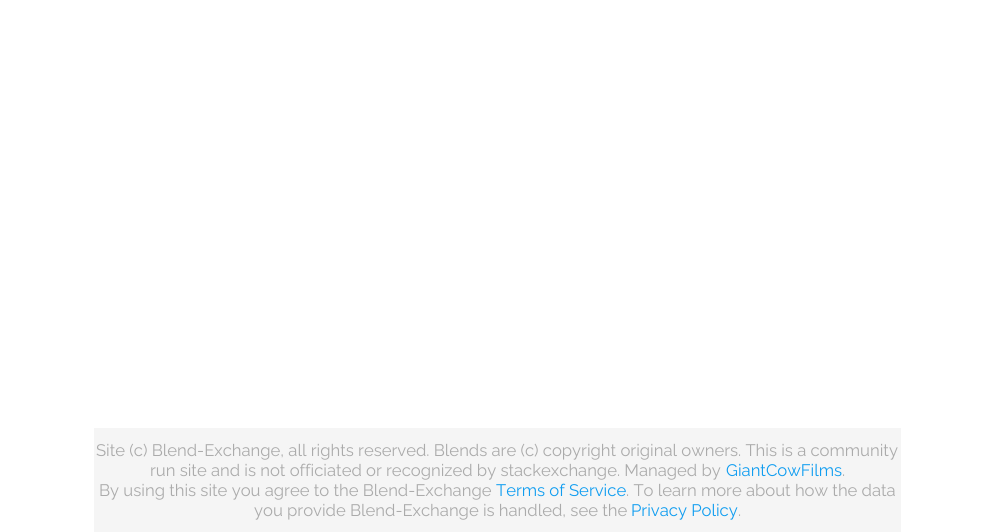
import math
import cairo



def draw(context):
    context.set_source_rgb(1, 1, 1)
    context.paint()
    context.set_source_rgb(245 / 255, 245 / 255, 245 / 255)
    context.rectangle(94, 428, 807, 104)
    context.fill()
    context.select_font_face("Raleway")
    context.set_font_size(16.65)
    context.set_source_rgb(171 / 255, 171 / 255, 171 / 255)
    context.move_to(96, 456)
    context.show_text("Site (c) Blend-Exchange, all rights reserved. Blends are (c) copyright original owners. This is a community")
    context.move_to(150, 476)
    context.show_text("run site and is not officiated or recognized by stackexchange. Managed by")
    context.set_source_rgb(16 / 255, 157 / 255, 240 / 255)
    context.move_to(726, 476)
    context.show_text("GiantCowFilms")
    context.set_source_rgb(171 / 255, 171 / 255, 171 / 255)
    context.move_to(842, 476)
    context.show_text(".")
    context.move_to(99, 496)
    context.show_text("By using this site you agree to the Blend-Exchange")
    context.set_source_rgb(16 / 255, 157 / 255, 240 / 255)
    context.move_to(496, 496)
    context.show_text("Terms of Service")
    context.set_source_rgb(171 / 255, 171 / 255, 171 / 255)
    context.move_to(626, 496)
    context.show_text(". To learn more about how the data")
    context.move_to(254, 516)
    context.show_text("you provide Blend-Exchange is handled, see the")
    context.set_source_rgb(16 / 255, 157 / 255, 240 / 255)
    context.move_to(631, 516)
    context.show_text("Privacy Policy")
    context.set_source_rgb(171 / 255, 171 / 255, 171 / 255)
    context.move_to(738, 516)
    context.show_text(".")


surface = cairo.ImageSurface(cairo.Format.RGB24, 994, 532)
context = cairo.Context(surface)
options = cairo.FontOptions()
options.set_hint_metrics(cairo.HintMetrics.OFF)
options.set_hint_style(cairo.HintStyle.NONE)
context.set_font_options(options)
context.set_miter_limit(4)
draw(context)
surface.write_to_png("out.png")
